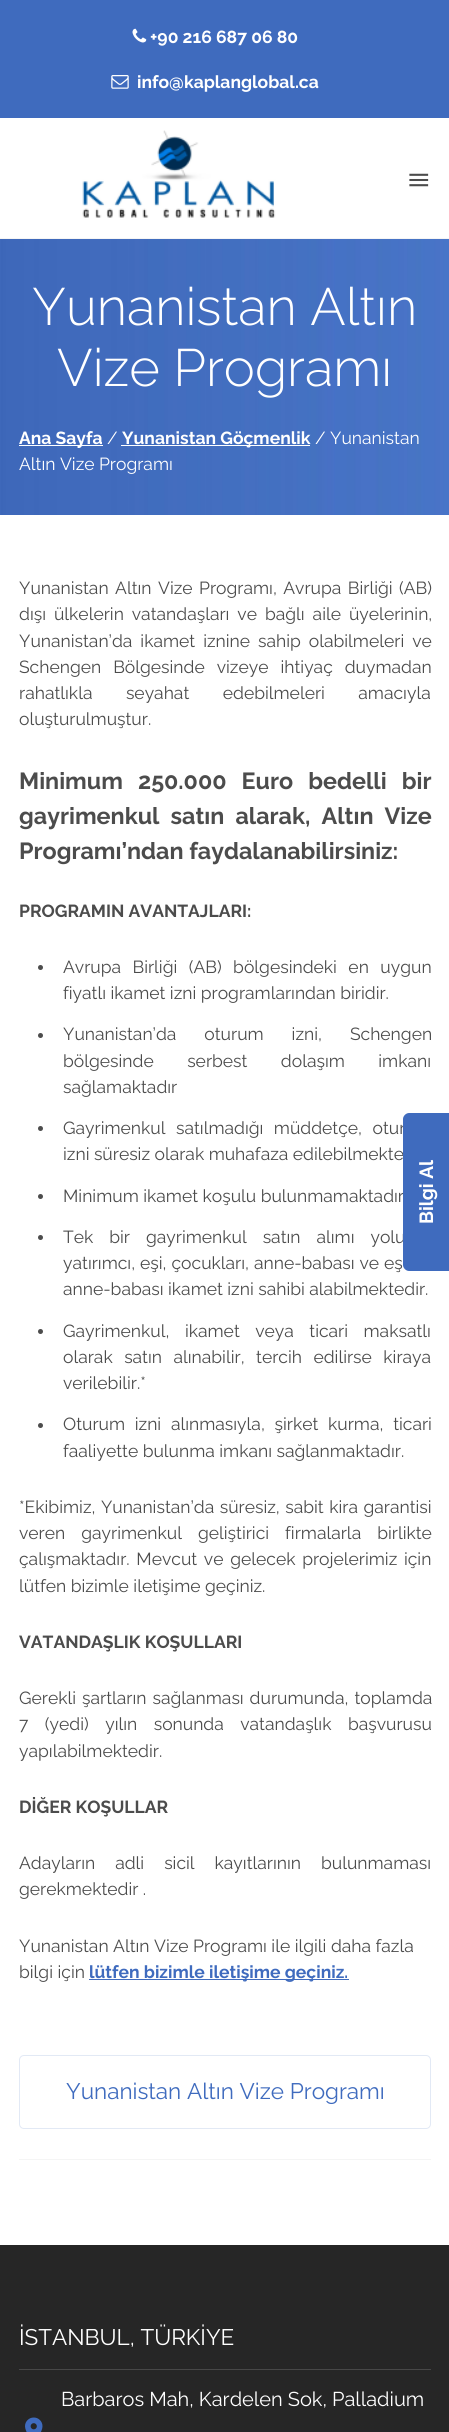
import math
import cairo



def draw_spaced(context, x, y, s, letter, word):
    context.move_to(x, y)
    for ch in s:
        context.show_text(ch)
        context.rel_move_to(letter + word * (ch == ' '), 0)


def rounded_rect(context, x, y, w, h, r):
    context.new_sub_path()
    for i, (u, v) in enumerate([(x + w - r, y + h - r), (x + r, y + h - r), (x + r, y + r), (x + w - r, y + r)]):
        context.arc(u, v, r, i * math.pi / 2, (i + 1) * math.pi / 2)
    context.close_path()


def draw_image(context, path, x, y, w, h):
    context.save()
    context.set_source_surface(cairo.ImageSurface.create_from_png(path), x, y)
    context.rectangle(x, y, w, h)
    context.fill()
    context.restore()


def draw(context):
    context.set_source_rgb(1, 1, 1)
    context.paint()
    context.set_source_rgb(63 / 255, 107 / 255, 190 / 255)
    context.rectangle(0, 0, 449, 118)
    context.fill()
    draw_image(context, "images/1.png", 132, 28, 15, 15)
    draw_image(context, "images/2.png", 111, 75, 18, 14)
    context.set_source_rgb(245 / 255, 245 / 255, 245 / 255)
    context.rectangle(0, 238, 449, 1)
    context.fill()
    draw_image(context, "images/3.png", 82, 130, 194, 88)
    draw_image(context, "images/4.png", 409, 173, 20, 14)
    draw_image(context, "images/5.png", 0, 239, 449, 276)
    context.set_source_rgb(1, 1, 1)
    context.rectangle(19, 445, 84, 1)
    context.fill()
    context.rectangle(121, 445, 189, 1)
    context.fill()
    context.set_source_rgb(76 / 255, 76 / 255, 76 / 255)
    context.arc(40.5, 967.5, 2.5, 0, 2 * math.pi)
    context.fill()
    context.arc(40.5, 1035.5, 2.5, 0, 2 * math.pi)
    context.fill()
    context.arc(40.5, 1128.5, 2.5, 0, 2 * math.pi)
    context.fill()
    context.arc(40.5, 1196.5, 2.5, 0, 2 * math.pi)
    context.fill()
    context.arc(40.5, 1237.5, 2.5, 0, 2 * math.pi)
    context.fill()
    context.arc(40.5, 1331.5, 2.5, 0, 2 * math.pi)
    context.fill()
    context.arc(40.5, 1425.5, 2.5, 0, 2 * math.pi)
    context.fill()
    context.set_source_rgb(63 / 255, 107 / 255, 190 / 255)
    context.rectangle(89, 1979, 260, 1)
    context.fill()
    context.set_source_rgb(245 / 255, 245 / 255, 245 / 255)
    context.rectangle(19, 2159, 412, 1)
    context.fill()
    rounded_rect(context, 19.5, 2055.5, 411, 73, 4.5)
    context.set_source_rgb(226 / 255, 233 / 255, 245 / 255)
    context.set_line_width(1)
    context.stroke()
    context.set_source_rgb(38 / 255, 38 / 255, 38 / 255)
    context.rectangle(0, 2245, 449, 187)
    context.fill()
    context.set_source_rgb(71 / 255, 71 / 255, 71 / 255)
    context.rectangle(19, 2369, 412, 1)
    context.fill()
    draw_image(context, "images/6.png", 25, 2417, 18, 15)
    context.select_font_face("Raleway", cairo.FontSlant.NORMAL, cairo.FontWeight.BOLD)
    context.set_font_size(17.5)
    context.set_source_rgb(1, 1, 1)
    context.move_to(150, 43)
    context.show_text("+90 216 687 06 80")
    context.move_to(137, 88)
    context.show_text("info@kaplanglobal.ca")
    context.select_font_face("Raleway Light")
    context.set_font_size(52.5)
    context.move_to(32, 325)
    context.show_text("Yunanistan Altın")
    context.move_to(57, 386)
    context.show_text("Vize Programı")
    context.select_font_face("Raleway", cairo.FontSlant.NORMAL, cairo.FontWeight.BOLD)
    context.set_font_size(17.5)
    context.move_to(19, 444)
    context.show_text("Ana Sayfa")
    context.select_font_face("Raleway")
    context.move_to(107, 444)
    context.show_text("/")
    context.select_font_face("Raleway", cairo.FontSlant.NORMAL, cairo.FontWeight.BOLD)
    context.move_to(122, 444)
    context.show_text("Yunanistan Göçmenlik")
    context.select_font_face("Raleway")
    context.move_to(315, 444)
    context.show_text("/ Yunanistan")
    context.move_to(19, 470)
    context.show_text("Altın Vize Programı")
    context.set_source_rgb(76 / 255, 76 / 255, 76 / 255)
    draw_spaced(context, 19, 594, "Yunanistan Altın Vize Programı, Avrupa Birliği (AB)", 0, 2)
    draw_spaced(context, 19, 620, "dışı ülkelerin vatandaşları ve bağlı aile üyelerinin,", 0, 3.5)
    draw_spaced(context, 19, 647, "Yunanistan’da ikamet iznine sahip olabilmeleri ve", 0, 3.5)
    draw_spaced(context, 19, 673, "Schengen Bölgesinde vizeye ihtiyaç duymadan", 0, 7.5)
    draw_spaced(context, 19, 699, "rahatlıkla seyahat edebilmeleri amacıyla", 0, 29)
    context.move_to(19, 725)
    context.show_text("oluşturulmuştur.")
    context.select_font_face("Raleway", cairo.FontSlant.NORMAL, cairo.FontWeight.BOLD)
    context.set_font_size(23.3)
    draw_spaced(context, 19, 789, "Minimum 250.000 Euro bedelli bir", 0, 9.5)
    draw_spaced(context, 19, 824, "gayrimenkul satın alarak, Altın Vize", 0, 5.5)
    context.move_to(19, 859)
    context.show_text("Programı’ndan faydalanabilirsiniz:")
    context.set_font_size(17.5)
    context.move_to(19, 917)
    context.show_text("PROGRAMIN AVANTAJLARI:")
    context.select_font_face("Raleway")
    draw_spaced(context, 63, 973, "Avrupa Birliği (AB) bölgesindeki en uygun", 0, 7)
    context.move_to(63, 999)
    context.show_text("fiyatlı ikamet izni programlarından biridir.")
    draw_spaced(context, 63, 1040, "Yunanistan’da oturum izni, Schengen", 0, 23.5)
    draw_spaced(context, 63, 1067, "bölgesinde serbest dolaşım imkanı", 0, 29)
    context.move_to(63, 1093)
    context.show_text("sağlamaktadır")
    draw_spaced(context, 63, 1134, "Gayrimenkul satılmadığı müddetçe, otur", 0, 6)
    context.move_to(63, 1160)
    context.show_text("izni süresiz olarak muhafaza edilebilmekte")
    context.move_to(63, 1202)
    context.show_text("Minimum ikamet koşulu bulunmamaktadır")
    draw_spaced(context, 63, 1243, "Tek bir gayrimenkul satın alımı yolu", 0, 11.5)
    draw_spaced(context, 63, 1269, "yatırımcı, eşi, çocukları, anne-babası ve eş", 0, 0.5)
    context.move_to(63, 1295)
    context.show_text("anne-babası ikamet izni sahibi alabilmektedir.")
    draw_spaced(context, 63, 1337, "Gayrimenkul, ikamet veya ticari maksatlı", 0, 11)
    draw_spaced(context, 63, 1363, "olarak satın alınabilir, tercih edilirse kiraya", 0, 7)
    context.move_to(63, 1389)
    context.show_text("verilebilir.*")
    draw_spaced(context, 63, 1430, "Oturum izni alınmasıyla, şirket kurma, ticari", 0, 5.25)
    context.move_to(63, 1457)
    context.show_text("faaliyette bulunma imkanı sağlanmaktadır.")
    draw_spaced(context, 19, 1513, "*Ekibimiz, Yunanistan’da süresiz, sabit kira garantisi", 0, 1)
    draw_spaced(context, 19, 1539, "veren gayrimenkul geliştirici firmalarla birlikte", 0, 11.5)
    draw_spaced(context, 19, 1565, "çalışmaktadır. Mevcut ve gelecek projelerimiz için", 0, 2.25)
    context.move_to(19, 1592)
    context.show_text("lütfen bizimle iletişime geçiniz.")
    context.select_font_face("Raleway", cairo.FontSlant.NORMAL, cairo.FontWeight.BOLD)
    context.move_to(19, 1648)
    context.show_text("VATANDAŞLIK KOŞULLARI")
    context.select_font_face("Raleway")
    draw_spaced(context, 19, 1704, "Gerekli şartların sağlanması durumunda, toplamda", 0, 1.5)
    draw_spaced(context, 19, 1730, "7 (yedi) yılın sonunda vatandaşlık başvurusu", 0, 12)
    context.move_to(19, 1757)
    context.show_text("yapılabilmektedir.")
    context.select_font_face("Raleway", cairo.FontSlant.NORMAL, cairo.FontWeight.BOLD)
    context.move_to(19, 1813)
    context.show_text("DİĞER KOŞULLAR")
    context.select_font_face("Raleway")
    draw_spaced(context, 19, 1869, "Adayların adli sicil kayıtlarının bulunmaması", 0, 15.5)
    context.move_to(19, 1895)
    context.show_text("gerekmektedir .")
    context.move_to(19, 1952)
    context.show_text("Yunanistan Altın Vize Programı ile ilgili daha fazla")
    context.move_to(19, 1978)
    context.show_text("bilgi için")
    context.select_font_face("Raleway", cairo.FontSlant.NORMAL, cairo.FontWeight.BOLD)
    context.set_source_rgb(63 / 255, 107 / 255, 190 / 255)
    context.move_to(89, 1978)
    context.show_text("lütfen bizimle iletişime geçiniz.")
    context.select_font_face("Raleway")
    context.set_font_size(22.5)
    context.move_to(66, 2099)
    context.show_text("Yunanistan Altın Vize Programı")
    context.set_source_rgb(1, 1, 1)
    context.move_to(19, 2345)
    context.show_text("İSTANBUL, TÜRKİYE")
    context.set_font_size(20)
    context.move_to(61, 2406)
    context.show_text("Barbaros Mah, Kardelen Sok, Palladium")
    context.set_source_rgb(63 / 255, 107 / 255, 190 / 255)
    context.new_path()
    context.move_to(403, 1265)
    context.line_to(403, 1119)
    context.curve_to(403, 1116, 406, 1113, 409, 1113)
    context.line_to(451, 1113)
    context.line_to(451, 1271)
    context.line_to(409, 1271)
    context.curve_to(406, 1271, 403, 1268, 403, 1265)
    context.close_path()
    context.fill()
    context.select_font_face("Raleway", cairo.FontSlant.NORMAL, cairo.FontWeight.BOLD)
    context.set_font_size(19)
    context.set_source_rgb(1, 1, 1)
    context.save()
    context.translate(433, 1224)
    context.rotate(-90 * math.pi / 180)
    context.move_to(0, 0)
    context.show_text("Bilgi Al")
    context.restore()


surface = cairo.ImageSurface(cairo.Format.RGB24, 449, 2432)
context = cairo.Context(surface)
options = cairo.FontOptions()
options.set_hint_metrics(cairo.HintMetrics.OFF)
options.set_hint_style(cairo.HintStyle.NONE)
context.set_font_options(options)
context.set_miter_limit(4)
draw(context)
surface.write_to_png("out.png")
